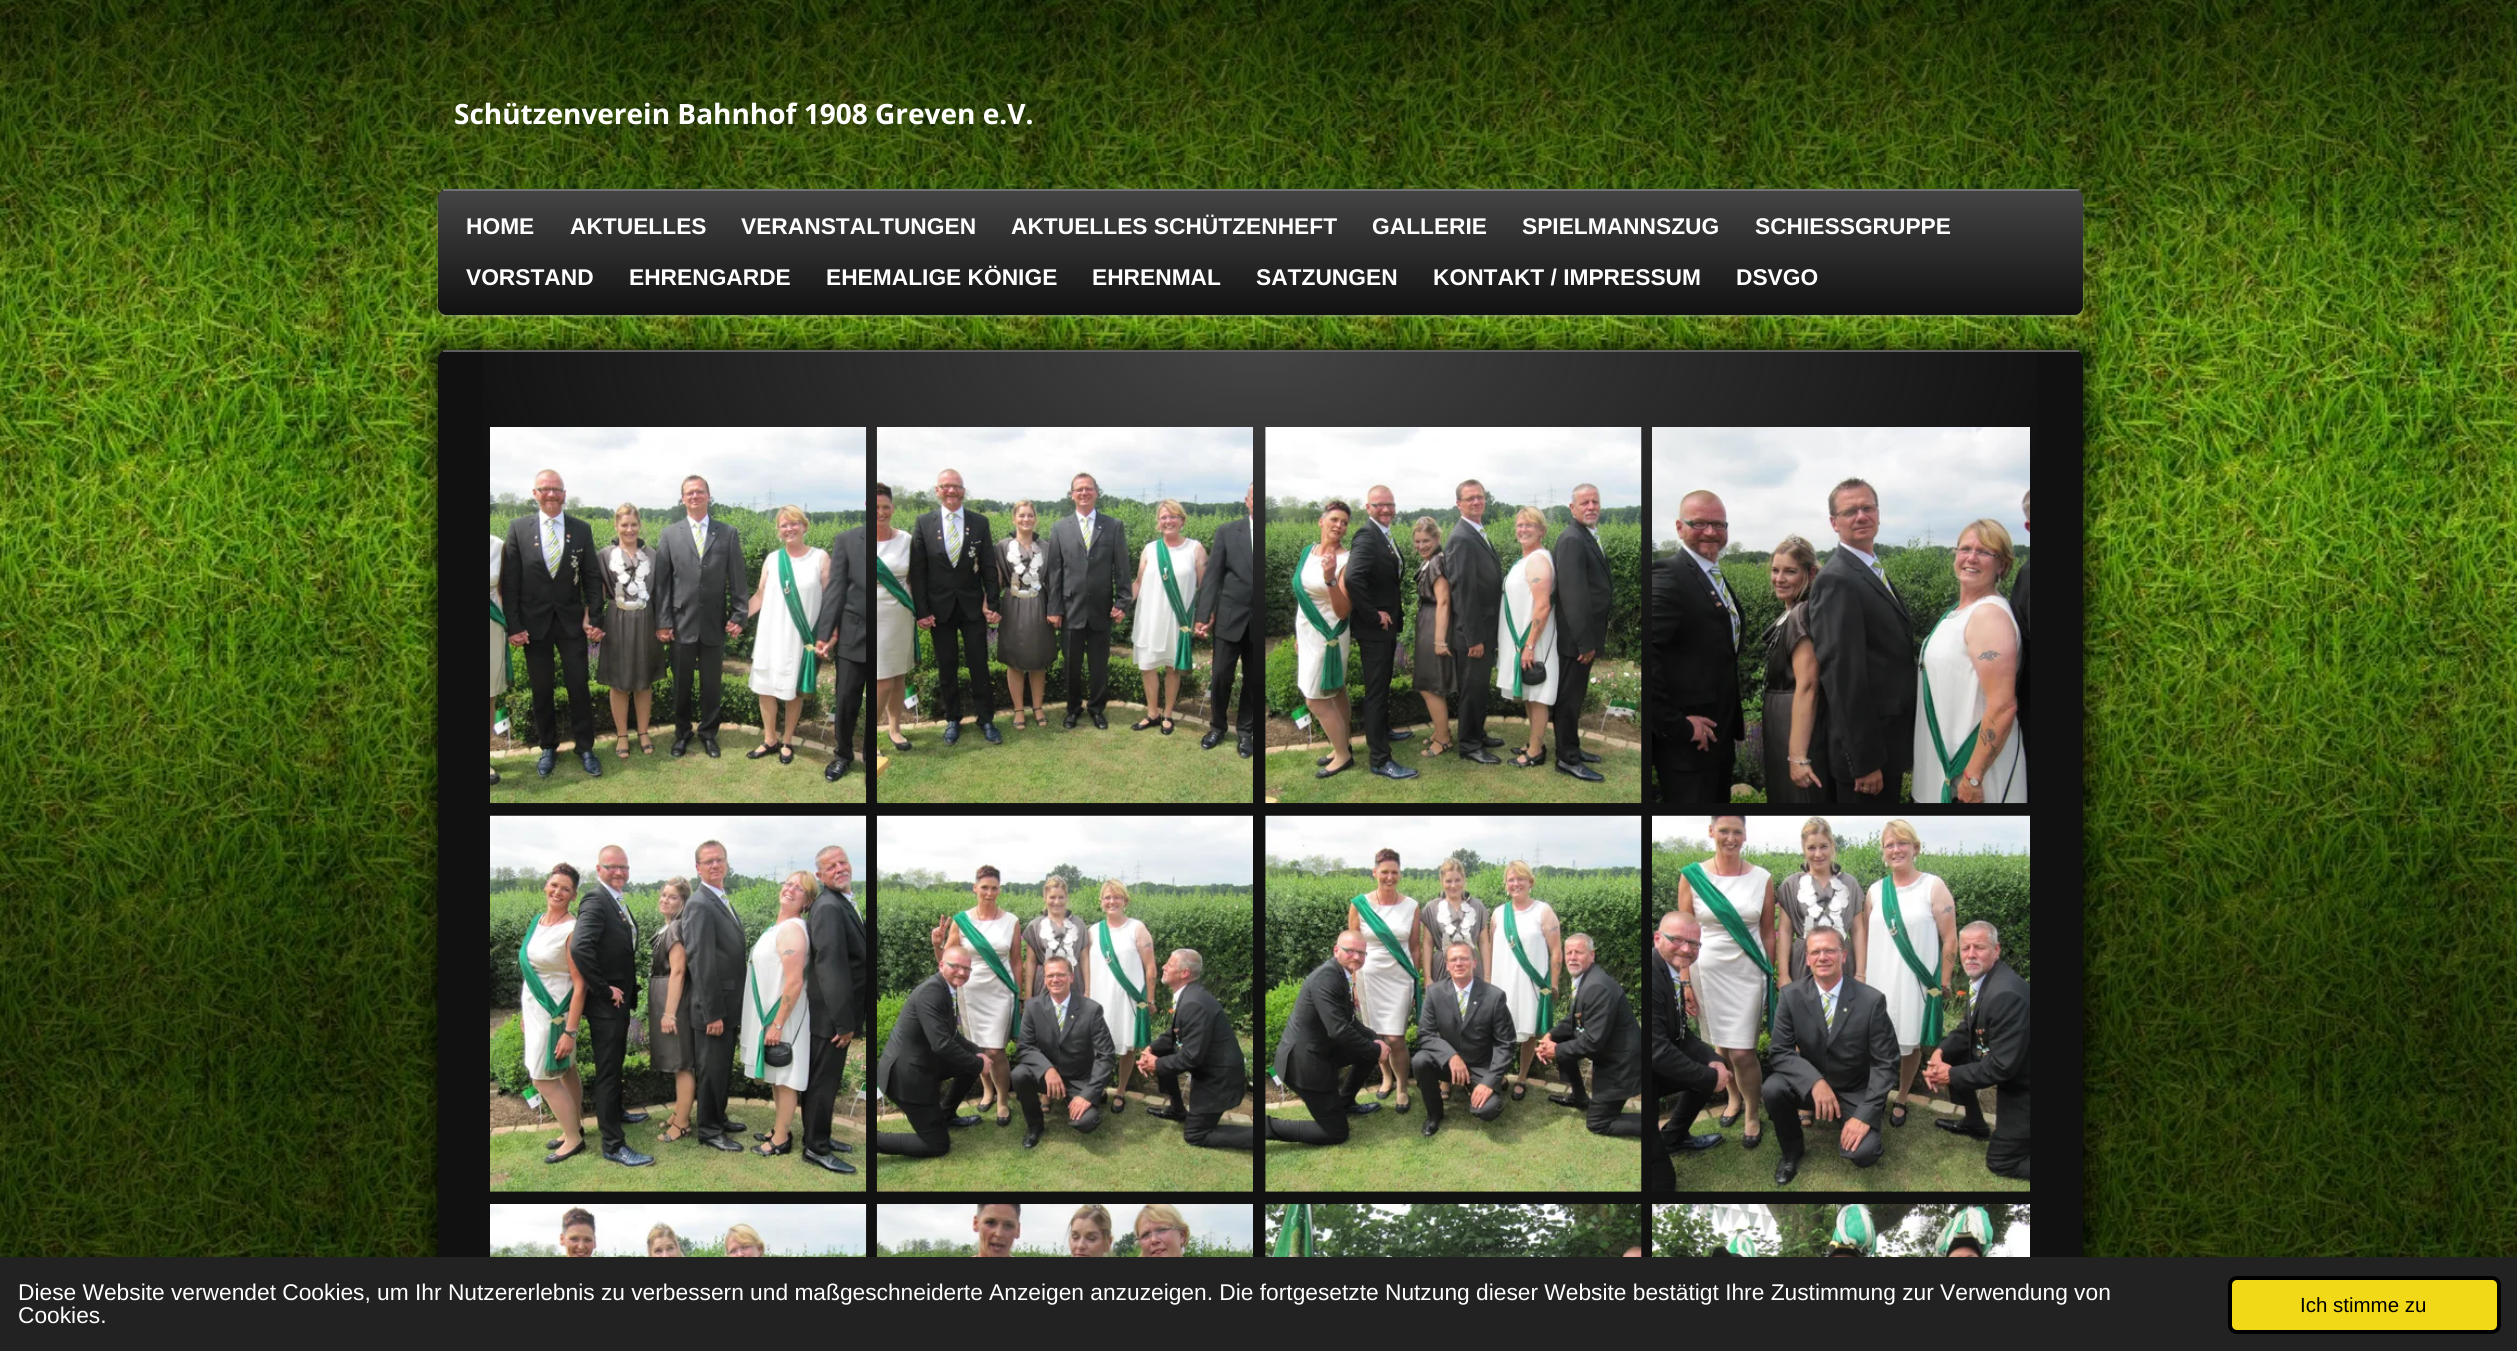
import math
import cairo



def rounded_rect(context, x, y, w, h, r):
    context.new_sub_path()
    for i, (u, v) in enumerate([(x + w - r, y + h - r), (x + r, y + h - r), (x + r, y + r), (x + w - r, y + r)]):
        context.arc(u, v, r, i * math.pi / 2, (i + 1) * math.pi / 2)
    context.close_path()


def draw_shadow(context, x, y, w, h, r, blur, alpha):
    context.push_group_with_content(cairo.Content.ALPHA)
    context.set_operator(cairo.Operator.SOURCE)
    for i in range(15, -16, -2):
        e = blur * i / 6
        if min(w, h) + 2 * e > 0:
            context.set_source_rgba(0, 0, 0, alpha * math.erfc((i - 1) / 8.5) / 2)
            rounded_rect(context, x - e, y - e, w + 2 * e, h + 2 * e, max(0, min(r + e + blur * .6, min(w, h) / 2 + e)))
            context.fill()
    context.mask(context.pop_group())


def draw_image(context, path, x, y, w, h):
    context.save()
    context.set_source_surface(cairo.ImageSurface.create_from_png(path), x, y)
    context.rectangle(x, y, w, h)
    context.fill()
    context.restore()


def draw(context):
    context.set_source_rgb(1, 1, 1)
    context.paint()
    draw_image(context, "images/1.png", 0, 0, 2517, 1257)
    context.set_source_rgba(0, 0, 0, 0.6)
    context.rectangle(0, 0, 2517, 35)
    context.fill()
    context.set_source_rgb(1, 1, 1)
    draw_shadow(context, 438, 191, 1645, 126, 9, 1, 0.3)
    context.set_source_rgb(17 / 255, 17 / 255, 17 / 255)
    rounded_rect(context, 438, 189, 1645, 126, 9)
    context.fill()
    context.save()
    rounded_rect(context, 438, 189, 1645, 126, 9)
    context.clip()
    gradient = cairo.LinearGradient(1260, 191, 1260, 67)
    gradient.add_color_stop_rgba(0, 17 / 255, 17 / 255, 17 / 255, 1)
    gradient.add_color_stop_rgba(1, 68 / 255, 68 / 255, 68 / 255, 1)
    context.set_source(gradient)
    context.rectangle(438, 190, 1645, 1)
    context.fill()
    gradient = cairo.LinearGradient(1260, 315, 1260, 191)
    gradient.add_color_stop_rgba(0, 17 / 255, 17 / 255, 17 / 255, 1)
    gradient.add_color_stop_rgba(1, 68 / 255, 68 / 255, 68 / 255, 1)
    context.set_source(gradient)
    context.new_path()
    context.move_to(438, 191)
    context.line_to(2083, 191)
    context.line_to(2083, 306)
    context.curve_to(2083, 311, 2079, 315, 2074, 315)
    context.line_to(447, 315)
    context.curve_to(442, 315, 438, 311, 438, 306)
    context.close_path()
    context.fill()
    context.restore()
    context.set_source_rgb(114 / 255, 114 / 255, 114 / 255)
    context.rectangle(443, 189, 1636, 2)
    context.fill()
    context.set_source_rgba(0, 0, 0, 0.6)
    context.rectangle(0, 980, 2517, 277)
    context.fill()
    context.set_source_rgb(0, 0, 0)
    draw_shadow(context, 438, 350, 1645, 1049, 9, 13, 1)
    context.set_source_rgb(17 / 255, 17 / 255, 17 / 255)
    rounded_rect(context, 438, 350, 1645, 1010, 9)
    context.fill()
    context.set_source_rgb(94 / 255, 94 / 255, 94 / 255)
    context.rectangle(443, 350, 1636, 2)
    context.fill()
    gradient = cairo.RadialGradient(0, 0, 0, 0, 0, 1)
    gradient.set_matrix(cairo.Matrix(1 / 823, 0, 0, 1 / 350, -1 * 1260 / 823, -1 * 352 / 350))
    gradient.add_color_stop_rgba(0, 68 / 255, 68 / 255, 68 / 255, 1)
    gradient.add_color_stop_rgba(1, 68 / 255, 68 / 255, 68 / 255, 0)
    context.set_source(gradient)
    context.rectangle(483, 352, 1554, 332)
    context.fill()
    draw_image(context, "images/2.png", 490, 427, 377, 377)
    draw_image(context, "images/3.png", 876, 427, 377, 377)
    draw_image(context, "images/4.png", 1265, 427, 377, 377)
    draw_image(context, "images/5.png", 1652, 427, 378, 377)
    draw_image(context, "images/6.png", 490, 815, 377, 377)
    draw_image(context, "images/7.png", 876, 815, 377, 377)
    draw_image(context, "images/8.png", 1265, 815, 377, 377)
    draw_image(context, "images/9.png", 1652, 815, 378, 377)
    draw_image(context, "images/10.png", 490, 1204, 377, 53)
    draw_image(context, "images/11.png", 876, 1204, 377, 53)
    draw_image(context, "images/12.png", 1265, 1204, 377, 53)
    draw_image(context, "images/13.png", 1652, 1204, 378, 53)
    context.set_source_rgb(34 / 255, 34 / 255, 34 / 255)
    context.rectangle(0, 1257, 2517, 94)
    context.fill()
    context.set_source_rgb(242 / 255, 217 / 255, 24 / 255)
    rounded_rect(context, 2230, 1278, 269, 54, 7)
    context.fill_preserve()
    context.set_source_rgb(0, 0, 0)
    context.set_line_width(4)
    context.stroke()
    context.select_font_face("Open Sans", cairo.FontSlant.NORMAL, cairo.FontWeight.BOLD)
    context.set_font_size(28)
    context.set_source_rgb(1, 1, 1)
    context.move_to(454, 124)
    context.show_text("Schützenverein Bahnhof 1908 Greven e.V.")
    context.select_font_face("Liberation Sans", cairo.FontSlant.NORMAL, cairo.FontWeight.BOLD)
    context.set_font_size(22.75)
    context.move_to(466, 234)
    context.show_text("HOME")
    context.move_to(570, 234)
    context.show_text("AKTUELLES")
    context.move_to(741, 234)
    context.show_text("VERANSTALTUNGEN")
    context.move_to(1011, 234)
    context.show_text("AKTUELLES SCHÜTZENHEFT")
    context.move_to(1372, 234)
    context.show_text("GALLERIE")
    context.move_to(1522, 234)
    context.show_text("SPIELMANNSZUG")
    context.move_to(1755, 234)
    context.show_text("SCHIESSGRUPPE")
    context.move_to(466, 285)
    context.show_text("VORSTAND")
    context.move_to(629, 285)
    context.show_text("EHRENGARDE")
    context.move_to(826, 285)
    context.show_text("EHEMALIGE KÖNIGE")
    context.move_to(1092, 285)
    context.show_text("EHRENMAL")
    context.move_to(1256, 285)
    context.show_text("SATZUNGEN")
    context.move_to(1433, 285)
    context.show_text("KONTAKT / IMPRESSUM")
    context.move_to(1736, 285)
    context.show_text("DSVGO")
    context.select_font_face("Liberation Sans")
    context.move_to(18, 1300)
    context.show_text("Diese Website verwendet Cookies, um Ihr Nutzererlebnis zu verbessern und maßgeschneiderte Anzeigen anzuzeigen. Die fortgesetzte Nutzung dieser Website bestätigt Ihre Zustimmung zur Verwendung von")
    context.move_to(18, 1323)
    context.show_text("Cookies.")
    context.set_font_size(20.5)
    context.set_source_rgb(0, 0, 0)
    context.move_to(2300, 1312)
    context.show_text("Ich stimme zu")


surface = cairo.ImageSurface(cairo.Format.RGB24, 2517, 1351)
context = cairo.Context(surface)
options = cairo.FontOptions()
options.set_hint_metrics(cairo.HintMetrics.OFF)
options.set_hint_style(cairo.HintStyle.NONE)
context.set_font_options(options)
context.set_miter_limit(4)
draw(context)
surface.write_to_png("out.png")
